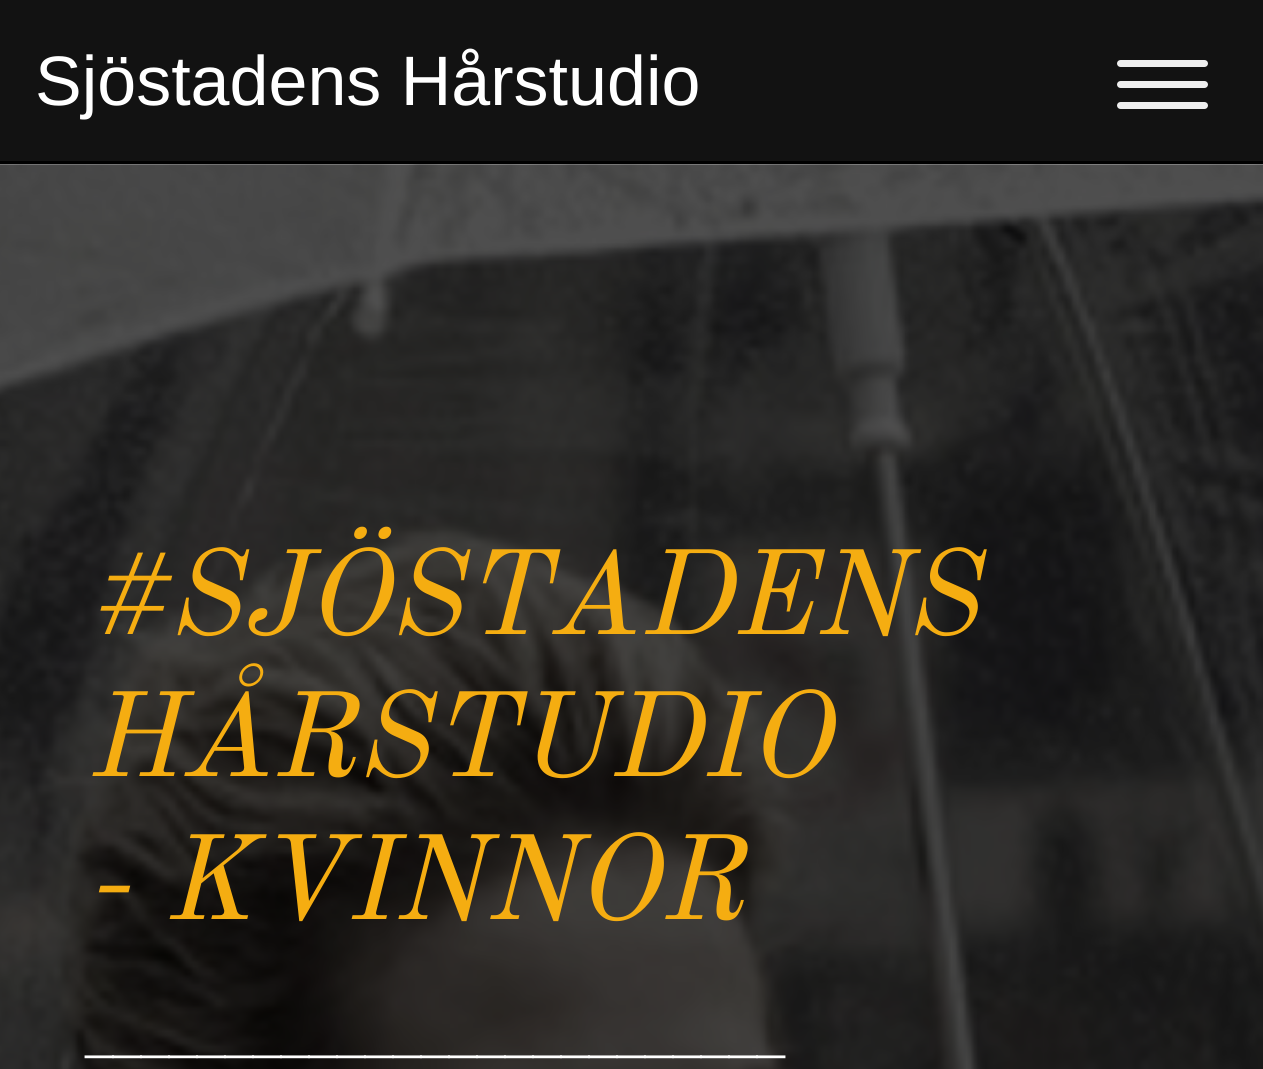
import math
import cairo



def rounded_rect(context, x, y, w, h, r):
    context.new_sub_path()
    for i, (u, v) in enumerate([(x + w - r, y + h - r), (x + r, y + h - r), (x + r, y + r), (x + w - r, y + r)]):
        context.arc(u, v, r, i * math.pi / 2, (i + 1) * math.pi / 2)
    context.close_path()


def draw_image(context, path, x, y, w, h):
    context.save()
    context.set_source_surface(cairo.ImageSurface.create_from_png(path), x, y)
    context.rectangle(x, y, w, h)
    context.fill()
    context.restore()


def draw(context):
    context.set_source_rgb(0, 0, 0)
    context.paint()
    context.set_source_rgb(18 / 255, 18 / 255, 18 / 255)
    context.rectangle(0, 0, 1263, 161)
    context.fill()
    context.set_source_rgb(238 / 255, 238 / 255, 238 / 255)
    rounded_rect(context, 1117, 60, 91, 7, 3.5)
    context.fill()
    rounded_rect(context, 1117, 81, 91, 7, 3.5)
    context.fill()
    rounded_rect(context, 1117, 102, 91, 7, 3.5)
    context.fill()
    draw_image(context, "images/1.png", 0, 164, 1263, 905)
    context.select_font_face("Liberation Sans")
    context.set_font_size(70)
    context.set_source_rgb(1, 1, 1)
    context.move_to(35, 105)
    context.show_text("Sjöstadens Hårstudio")
    context.select_font_face("Old Standard TT", cairo.FontSlant.ITALIC)
    context.set_font_size(119)
    context.set_source_rgb(245 / 255, 173 / 255, 17 / 255)
    context.move_to(85, 634)
    context.show_text("#SJÖSTADENS")
    context.move_to(85, 776)
    context.show_text("HÅRSTUDIO")
    context.move_to(85, 919)
    context.show_text("- KVINNOR")
    context.select_font_face("Liberation Serif", cairo.FontSlant.ITALIC)
    context.set_font_size(56)
    context.set_source_rgb(1, 1, 1)
    context.move_to(85, 1051)
    context.show_text("_________________________")


surface = cairo.ImageSurface(cairo.Format.RGB24, 1263, 1069)
context = cairo.Context(surface)
options = cairo.FontOptions()
options.set_hint_metrics(cairo.HintMetrics.OFF)
options.set_hint_style(cairo.HintStyle.NONE)
context.set_font_options(options)
context.set_miter_limit(4)
draw(context)
surface.write_to_png("out.png")
